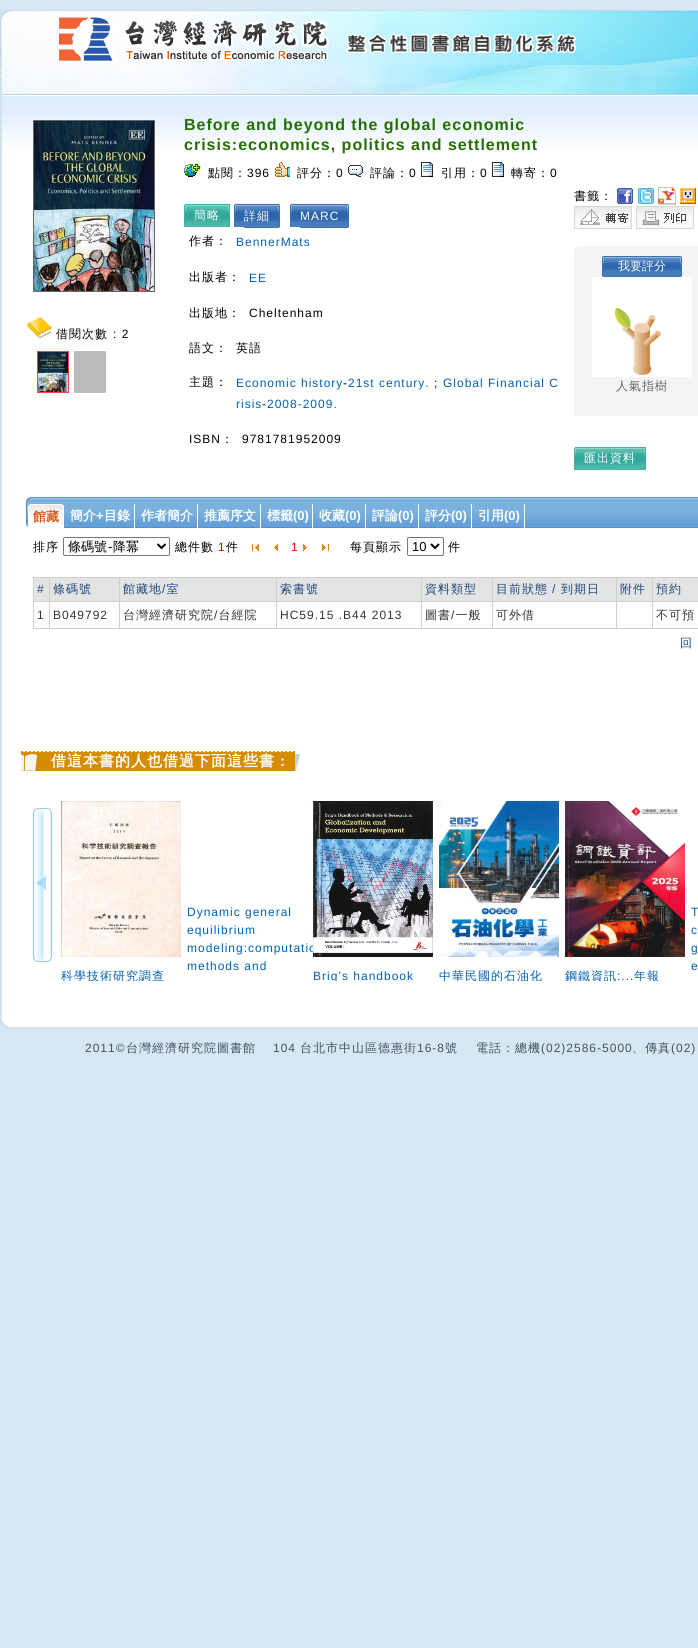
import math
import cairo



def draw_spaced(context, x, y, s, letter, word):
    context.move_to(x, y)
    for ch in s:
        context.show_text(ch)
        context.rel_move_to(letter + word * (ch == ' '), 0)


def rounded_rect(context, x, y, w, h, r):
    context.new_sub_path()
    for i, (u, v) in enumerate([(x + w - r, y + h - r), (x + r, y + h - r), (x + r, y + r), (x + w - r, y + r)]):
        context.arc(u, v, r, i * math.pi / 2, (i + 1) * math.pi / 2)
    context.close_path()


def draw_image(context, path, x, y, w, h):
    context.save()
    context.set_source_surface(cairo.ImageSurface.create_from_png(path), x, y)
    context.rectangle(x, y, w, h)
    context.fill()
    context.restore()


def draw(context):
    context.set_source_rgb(215 / 255, 232 / 255, 244 / 255)
    context.paint()
    draw_image(context, "images/1.png", 0, 65, 698, 953)
    draw_image(context, "images/2.png", 2, 65, 503, 29)
    draw_image(context, "images/3.png", 505, 65, 193, 29)
    draw_image(context, "images/4.png", 0, 0, 698, 65)
    draw_image(context, "images/5.png", 59, 17, 517, 44)
    draw_image(context, "images/6.png", 2, 94, 696, 52)
    context.rectangle(33.5, 120.5, 121, 171)
    context.set_source_rgb(102 / 255, 102 / 255, 102 / 255)
    context.set_line_width(1)
    context.stroke()
    draw_image(context, "images/7.png", 34, 121, 120, 170)
    draw_image(context, "images/8.png", 27, 317, 25, 21)
    context.rectangle(37.5, 351.5, 31, 41)
    context.set_source_rgb(1, 63 / 255, 63 / 255)
    context.stroke()
    draw_image(context, "images/9.png", 38, 352, 30, 40)
    context.set_source_rgb(187 / 255, 187 / 255, 187 / 255)
    context.rectangle(74, 351, 32, 42)
    context.fill()
    draw_image(context, "images/10.png", 184, 163, 17, 14)
    draw_image(context, "images/11.png", 275, 162, 15, 15)
    draw_image(context, "images/12.png", 348, 165, 15, 12)
    draw_image(context, "images/13.png", 421, 162, 12, 15)
    draw_image(context, "images/13.png", 492, 162, 12, 15)
    draw_image(context, "images/14.png", 184, 204, 46, 23)
    draw_image(context, "images/15.png", 228, 205, 2, 22)
    draw_image(context, "images/16.png", 234, 204, 10, 23)
    draw_image(context, "images/17.png", 244, 204, 36, 24)
    draw_image(context, "images/16.png", 290, 204, 10, 23)
    draw_image(context, "images/18.png", 300, 204, 49, 24)
    draw_image(context, "images/19.png", 617, 188, 16, 16)
    draw_image(context, "images/20.png", 638, 188, 16, 16)
    draw_image(context, "images/21.png", 658, 187, 18, 18)
    draw_image(context, "images/22.png", 680, 188, 16, 16)
    draw_image(context, "images/23.png", 574, 206, 58, 23)
    draw_image(context, "images/24.png", 636, 206, 58, 23)
    draw_image(context, "images/25.png", 574, 246, 124, 170)
    draw_image(context, "images/26.png", 602, 256, 80, 21)
    draw_image(context, "images/27.png", 592, 277, 100, 100)
    draw_image(context, "images/28.png", 574, 447, 72, 23)
    draw_image(context, "images/15.png", 644, 448, 2, 22)
    draw_image(context, "images/29.png", 26, 497, 672, 31)
    draw_image(context, "images/30.png", 28, 504, 36, 24)
    draw_image(context, "images/31.png", 28, 504, 2, 13)
    context.set_source_rgb(1, 1, 1)
    context.rectangle(134, 504, 1, 24)
    context.fill()
    context.rectangle(197, 504, 1, 24)
    context.fill()
    context.rectangle(260, 504, 1, 24)
    context.fill()
    context.rectangle(312, 504, 1, 24)
    context.fill()
    context.rectangle(365, 504, 1, 24)
    context.fill()
    context.rectangle(418, 504, 1, 24)
    context.fill()
    context.rectangle(471, 504, 1, 24)
    context.fill()
    context.rectangle(524, 504, 1, 24)
    context.fill()
    rounded_rect(context, 63.5, 537.5, 106, 18, 1.5)
    context.set_source_rgb(118 / 255, 118 / 255, 118 / 255)
    context.stroke()
    context.new_path()
    context.move_to(157.5, 544)
    context.line_to(161.5, 548)
    context.line_to(165.5, 544)
    context.set_source_rgb(0, 0, 0)
    context.set_line_width(2)
    context.stroke()
    draw_image(context, "images/32.png", 252, 544, 7, 7)
    draw_image(context, "images/33.png", 274, 544, 4, 7)
    draw_image(context, "images/34.png", 303, 544, 4, 7)
    draw_image(context, "images/35.png", 322, 544, 7, 7)
    rounded_rect(context, 407.5, 537.5, 36, 18, 1.5)
    context.set_source_rgb(118 / 255, 118 / 255, 118 / 255)
    context.set_line_width(1)
    context.stroke()
    context.new_path()
    context.move_to(431, 544)
    context.line_to(435, 548)
    context.line_to(439, 544)
    context.set_source_rgb(0, 0, 0)
    context.set_line_width(2)
    context.stroke()
    context.set_source_rgb(207 / 255, 207 / 255, 207 / 255)
    context.rectangle(33, 577, 665, 1)
    context.fill()
    context.rectangle(33, 577, 1, 52)
    context.fill()
    context.set_source_rgb(228 / 255, 228 / 255, 228 / 255)
    context.rectangle(34, 578, 15, 23)
    context.fill()
    context.set_source_rgb(207 / 255, 207 / 255, 207 / 255)
    context.rectangle(652, 628, 46, 1)
    context.fill()
    context.rectangle(652, 601, 1, 28)
    context.fill()
    context.rectangle(652, 601, 46, 1)
    context.fill()
    context.rectangle(652, 577, 1, 25)
    context.fill()
    context.rectangle(616, 628, 37, 1)
    context.fill()
    context.rectangle(616, 601, 1, 28)
    context.fill()
    context.rectangle(616, 601, 37, 1)
    context.fill()
    context.rectangle(616, 577, 1, 25)
    context.fill()
    context.rectangle(492, 628, 125, 1)
    context.fill()
    context.rectangle(492, 601, 1, 28)
    context.fill()
    context.rectangle(492, 601, 125, 1)
    context.fill()
    context.rectangle(492, 577, 1, 25)
    context.fill()
    context.rectangle(421, 628, 72, 1)
    context.fill()
    context.rectangle(421, 601, 1, 28)
    context.fill()
    context.rectangle(421, 601, 72, 1)
    context.fill()
    context.rectangle(421, 577, 1, 25)
    context.fill()
    context.rectangle(276, 628, 146, 1)
    context.fill()
    context.rectangle(276, 601, 1, 28)
    context.fill()
    context.rectangle(276, 601, 146, 1)
    context.fill()
    context.rectangle(276, 577, 1, 25)
    context.fill()
    context.rectangle(119, 628, 158, 1)
    context.fill()
    context.rectangle(119, 601, 1, 28)
    context.fill()
    context.rectangle(119, 601, 158, 1)
    context.fill()
    context.rectangle(119, 577, 1, 25)
    context.fill()
    context.rectangle(49, 628, 71, 1)
    context.fill()
    context.rectangle(49, 601, 1, 28)
    context.fill()
    context.rectangle(49, 601, 71, 1)
    context.fill()
    context.rectangle(49, 577, 1, 25)
    context.fill()
    context.rectangle(33, 601, 17, 1)
    context.fill()
    context.set_source_rgb(228 / 255, 228 / 255, 228 / 255)
    context.rectangle(50, 578, 69, 23)
    context.fill()
    context.rectangle(120, 578, 156, 23)
    context.fill()
    context.rectangle(277, 578, 144, 23)
    context.fill()
    context.rectangle(422, 578, 70, 23)
    context.fill()
    context.rectangle(493, 578, 123, 23)
    context.fill()
    context.rectangle(617, 578, 35, 23)
    context.fill()
    context.rectangle(653, 578, 45, 23)
    context.fill()
    context.set_source_rgb(207 / 255, 207 / 255, 207 / 255)
    context.rectangle(33, 628, 17, 1)
    context.fill()
    draw_image(context, "images/36.png", 21, 751, 279, 20)
    draw_image(context, "images/37.png", 33, 808, 19, 154)
    draw_image(context, "images/38.png", 61, 801, 120, 156)
    draw_image(context, "images/40.png", 439, 801, 120, 156)
    draw_image(context, "images/41.png", 565, 801, 120, 156)
    draw_image(context, "images/42.png", 0, 1018, 698, 44)
    context.select_font_face("Liberation Sans")
    context.set_font_size(13)
    context.set_source_rgb(1, 1, 1)
    draw_spaced(context, 0, 77, ":", 1, 0)
    context.select_font_face("WenQuanYi Zen Hei Medium")
    context.set_font_size(12)
    context.set_source_rgb(0, 0, 0)
    draw_spaced(context, 56, 338, "借閱次數", 1, 0)
    context.select_font_face("Liberation Sans")
    draw_spaced(context, 113, 338, ": 2", 1, 0)
    context.select_font_face("Liberation Sans", cairo.FontSlant.NORMAL, cairo.FontWeight.BOLD)
    context.set_font_size(16)
    context.set_source_rgb(35 / 255, 112 / 255, 0)
    draw_spaced(context, 184, 130, "Before and beyond the global economic", 1, 0)
    draw_spaced(context, 184, 150, "crisis:economics, politics and settlement", 1, 0)
    context.select_font_face("WenQuanYi Zen Hei Medium")
    context.set_font_size(12)
    context.set_source_rgb(0, 0, 0)
    draw_spaced(context, 208, 177, "點閱：", 1, 0)
    context.select_font_face("Liberation Sans")
    draw_spaced(context, 247, 177, "396", 1, 0)
    context.select_font_face("WenQuanYi Zen Hei Medium")
    draw_spaced(context, 297, 177, "評分：", 1, 0)
    context.select_font_face("Liberation Sans")
    draw_spaced(context, 336, 177, "0", 1, 0)
    context.select_font_face("WenQuanYi Zen Hei Medium")
    draw_spaced(context, 370, 177, "評論：", 1, 0)
    context.select_font_face("Liberation Sans")
    draw_spaced(context, 409, 177, "0", 1, 0)
    context.select_font_face("WenQuanYi Zen Hei Medium")
    draw_spaced(context, 441, 177, "引用：", 1, 0)
    context.select_font_face("Liberation Sans")
    draw_spaced(context, 480, 177, "0", 1, 0)
    context.select_font_face("WenQuanYi Zen Hei Medium")
    draw_spaced(context, 511, 177, "轉寄：", 1, 0)
    context.select_font_face("Liberation Sans")
    draw_spaced(context, 550, 177, "0", 1, 0)
    context.select_font_face("WenQuanYi Zen Hei Medium")
    context.set_source_rgb(1, 1, 1)
    draw_spaced(context, 194, 219, "簡略", 1, 0)
    draw_spaced(context, 244, 220, "詳細", 1, 0)
    context.select_font_face("Liberation Sans")
    draw_spaced(context, 300, 220, "MARC", 1, 0)
    context.select_font_face("WenQuanYi Zen Hei Medium")
    context.set_source_rgb(0, 0, 0)
    draw_spaced(context, 189, 245, "作者：", 1, 0)
    context.select_font_face("Liberation Sans")
    context.set_source_rgb(0, 97 / 255, 180 / 255)
    draw_spaced(context, 236, 246, "BennerMats", 1, 0)
    context.select_font_face("WenQuanYi Zen Hei Medium")
    context.set_source_rgb(0, 0, 0)
    draw_spaced(context, 189, 281, "出版者：", 1, 0)
    context.select_font_face("Liberation Sans")
    context.set_source_rgb(0, 97 / 255, 180 / 255)
    draw_spaced(context, 249, 282, "EE", 1, 0)
    context.select_font_face("WenQuanYi Zen Hei Medium")
    context.set_source_rgb(0, 0, 0)
    draw_spaced(context, 189, 317, "出版地：", 1, 0)
    context.select_font_face("Liberation Sans")
    draw_spaced(context, 249, 317, "Cheltenham", 1, 0)
    context.select_font_face("WenQuanYi Zen Hei Medium")
    draw_spaced(context, 189, 352, "語文：", 1, 0)
    draw_spaced(context, 236, 352, "英語", 1, 0)
    draw_spaced(context, 189, 386, "主題：", 1, 0)
    context.select_font_face("Liberation Sans")
    context.set_source_rgb(0, 97 / 255, 180 / 255)
    draw_spaced(context, 236, 387, "Economic history", 1, 0)
    context.set_source_rgb(0, 0, 0)
    draw_spaced(context, 343, 387, "-", 1, 0)
    context.set_source_rgb(0, 97 / 255, 180 / 255)
    draw_spaced(context, 348, 387, "21st century.", 1, 0)
    context.set_source_rgb(0, 0, 0)
    draw_spaced(context, 434, 387, ";", 1, 0)
    context.set_source_rgb(0, 97 / 255, 180 / 255)
    draw_spaced(context, 443, 387, "Global Financial C", 1, 0)
    draw_spaced(context, 236, 408, "risis", 1, 0)
    context.set_source_rgb(0, 0, 0)
    draw_spaced(context, 262, 408, "-", 1, 0)
    context.set_source_rgb(0, 97 / 255, 180 / 255)
    draw_spaced(context, 267, 408, "2008-2009.", 1, 0)
    context.set_source_rgb(0, 0, 0)
    draw_spaced(context, 189, 443, "ISBN", 1, 0)
    context.select_font_face("WenQuanYi Zen Hei Medium")
    draw_spaced(context, 221, 443, "：", 1, 0)
    context.select_font_face("Liberation Sans")
    draw_spaced(context, 242, 443, "9781781952009", 1, 0)
    context.select_font_face("WenQuanYi Zen Hei Medium")
    draw_spaced(context, 574, 200, "書籤：", 1, 0)
    context.set_source_rgb(1, 1, 1)
    context.move_to(618, 270)
    context.show_text("我要評分")
    context.set_source_rgb(102 / 255, 102 / 255, 102 / 255)
    draw_spaced(context, 616, 390, "人氣指樹", 1, 0)
    context.set_source_rgb(1, 1, 1)
    draw_spaced(context, 584, 462, "匯出資料", 1, 0)
    context.select_font_face("WenQuanYi Zen Hei", cairo.FontSlant.NORMAL, cairo.FontWeight.BOLD)
    context.set_font_size(13)
    context.set_source_rgb(213 / 255, 89 / 255, 21 / 255)
    context.move_to(33, 521)
    context.show_text("館藏")
    context.set_source_rgb(1, 1, 1)
    context.move_to(70, 520)
    context.show_text("簡介")
    context.select_font_face("Liberation Sans", cairo.FontSlant.NORMAL, cairo.FontWeight.BOLD)
    context.move_to(96, 520)
    context.show_text("+")
    context.select_font_face("WenQuanYi Zen Hei", cairo.FontSlant.NORMAL, cairo.FontWeight.BOLD)
    context.move_to(104, 520)
    context.show_text("目錄")
    context.move_to(141, 520)
    context.show_text("作者簡介")
    context.move_to(204, 520)
    context.show_text("推薦序文")
    context.move_to(267, 520)
    context.show_text("標籤")
    context.select_font_face("Liberation Sans", cairo.FontSlant.NORMAL, cairo.FontWeight.BOLD)
    context.move_to(293, 520)
    context.show_text("(0)")
    context.select_font_face("WenQuanYi Zen Hei", cairo.FontSlant.NORMAL, cairo.FontWeight.BOLD)
    context.move_to(319, 520)
    context.show_text("收藏")
    context.select_font_face("Liberation Sans", cairo.FontSlant.NORMAL, cairo.FontWeight.BOLD)
    context.move_to(345, 520)
    context.show_text("(0)")
    context.select_font_face("WenQuanYi Zen Hei", cairo.FontSlant.NORMAL, cairo.FontWeight.BOLD)
    context.move_to(372, 520)
    context.show_text("評論")
    context.select_font_face("Liberation Sans", cairo.FontSlant.NORMAL, cairo.FontWeight.BOLD)
    context.move_to(398, 520)
    context.show_text("(0)")
    context.select_font_face("WenQuanYi Zen Hei", cairo.FontSlant.NORMAL, cairo.FontWeight.BOLD)
    context.move_to(425, 520)
    context.show_text("評分")
    context.select_font_face("Liberation Sans", cairo.FontSlant.NORMAL, cairo.FontWeight.BOLD)
    context.move_to(451, 520)
    context.show_text("(0)")
    context.select_font_face("WenQuanYi Zen Hei", cairo.FontSlant.NORMAL, cairo.FontWeight.BOLD)
    context.move_to(478, 520)
    context.show_text("引用")
    context.select_font_face("Liberation Sans", cairo.FontSlant.NORMAL, cairo.FontWeight.BOLD)
    context.move_to(504, 520)
    context.show_text("(0)")
    context.select_font_face("WenQuanYi Zen Hei Medium")
    context.set_font_size(12)
    context.set_source_rgb(0, 0, 0)
    draw_spaced(context, 33, 551, "排序", 1, 0)
    context.set_font_size(13)
    context.move_to(68, 551)
    context.show_text("條碼號")
    context.select_font_face("Liberation Sans")
    context.move_to(108, 551)
    context.show_text("-")
    context.select_font_face("WenQuanYi Zen Hei Medium")
    context.move_to(113, 551)
    context.show_text("降冪")
    context.set_font_size(12)
    draw_spaced(context, 175, 551, "總件數", 1, 0)
    context.select_font_face("Liberation Sans")
    context.set_source_rgb(204 / 255, 0, 0)
    draw_spaced(context, 218, 551, "1", 1, 0)
    context.select_font_face("WenQuanYi Zen Hei Medium")
    context.set_source_rgb(0, 0, 0)
    draw_spaced(context, 226, 551, "件", 1, 0)
    context.select_font_face("Liberation Sans")
    context.set_source_rgb(1, 0, 0)
    draw_spaced(context, 291, 551, "1", 1, 0)
    context.select_font_face("WenQuanYi Zen Hei Medium")
    context.set_source_rgb(0, 0, 0)
    draw_spaced(context, 350, 551, "每頁顯示", 1, 0)
    context.select_font_face("Liberation Sans")
    context.set_font_size(13)
    context.move_to(412, 551)
    context.show_text("10")
    context.select_font_face("WenQuanYi Zen Hei Medium")
    context.set_font_size(12)
    draw_spaced(context, 448, 551, "件", 1, 0)
    context.select_font_face("Liberation Sans")
    context.set_source_rgb(32 / 255, 72 / 255, 123 / 255)
    draw_spaced(context, 37, 593, "#", 1, 0)
    context.select_font_face("WenQuanYi Zen Hei Medium")
    draw_spaced(context, 53, 593, "條碼號", 1, 0)
    draw_spaced(context, 123, 593, "館藏地 室", 1, 0)
    context.select_font_face("Liberation Sans")
    draw_spaced(context, 162, 593, "/", 1, 0)
    context.select_font_face("WenQuanYi Zen Hei Medium")
    draw_spaced(context, 280, 593, "索書號", 1, 0)
    draw_spaced(context, 425, 593, "資料類型", 1, 0)
    draw_spaced(context, 496, 593, "目前狀態", 1, 0)
    context.select_font_face("Liberation Sans")
    draw_spaced(context, 552, 593, "/", 1, 0)
    context.select_font_face("WenQuanYi Zen Hei Medium")
    draw_spaced(context, 561, 593, "到期日", 1, 0)
    draw_spaced(context, 620, 593, "附件", 1, 0)
    draw_spaced(context, 656, 593, "預約", 1, 0)
    context.select_font_face("Liberation Sans")
    context.set_source_rgb(51 / 255, 51 / 255, 51 / 255)
    draw_spaced(context, 37, 619, "1", 1, 0)
    draw_spaced(context, 53, 619, "B049792", 1, 0)
    context.select_font_face("WenQuanYi Zen Hei Medium")
    draw_spaced(context, 123, 619, "台灣經濟研究院 台經院", 1, 0)
    context.select_font_face("Liberation Sans")
    draw_spaced(context, 214, 619, "/", 1, 0)
    draw_spaced(context, 280, 619, "HC59.15 .B44 2013", 1, 0)
    context.select_font_face("WenQuanYi Zen Hei Medium")
    draw_spaced(context, 425, 619, "圖書 一般", 1, 0)
    context.select_font_face("Liberation Sans")
    draw_spaced(context, 451, 619, "/", 1, 0)
    context.select_font_face("WenQuanYi Zen Hei Medium")
    draw_spaced(context, 496, 619, "可外借", 1, 0)
    draw_spaced(context, 656, 619, "不可預", 1, 0)
    context.set_source_rgb(20 / 255, 73 / 255, 127 / 255)
    draw_spaced(context, 680, 647, "回", 1, 0)
    context.select_font_face("WenQuanYi Zen Hei", cairo.FontSlant.NORMAL, cairo.FontWeight.BOLD)
    context.set_font_size(15)
    context.set_source_rgb(1, 1, 1)
    draw_spaced(context, 51, 766, "借這本書的人也借過下面這些書", 1, 0)
    context.select_font_face("Liberation Sans", cairo.FontSlant.NORMAL, cairo.FontWeight.BOLD)
    draw_spaced(context, 280, 766, ":", 1, 0)
    context.select_font_face("Liberation Sans")
    context.set_font_size(12)
    context.set_source_rgb(0, 97 / 255, 180 / 255)
    draw_spaced(context, 187, 916, "Dynamic general", 1, 0)
    draw_spaced(context, 187, 934, "equilibrium", 1, 0)
    draw_spaced(context, 187, 952, "modeling:computatio", 1, 0)
    draw_spaced(context, 187, 970, "methods and", 1, 0)
    draw_spaced(context, 691, 916, "T", 1, 0)
    draw_spaced(context, 691, 934, "c", 1, 0)
    draw_spaced(context, 691, 952, "g", 1, 0)
    draw_spaced(context, 691, 970, "e", 1, 0)
    context.save()
    context.rectangle(61, 801, 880, 180)
    context.clip()
    context.select_font_face("WenQuanYi Zen Hei Medium")
    draw_spaced(context, 61, 980, "科學技術研究調查", 1, 0)
    context.restore()
    draw_image(context, "images/39.png", 313, 801, 120, 156)
    context.save()
    context.rectangle(61, 801, 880, 180)
    context.clip()
    draw_spaced(context, 313, 980, "Brig’s handbook", 1, 0)
    context.select_font_face("WenQuanYi Zen Hei Medium")
    draw_spaced(context, 439, 980, "中華民國的石油化", 1, 0)
    draw_spaced(context, 565, 980, "鋼鐵資訊", 1, 0)
    context.restore()
    draw_spaced(context, 617, 980, ":...", 1, 0)
    context.save()
    context.rectangle(61, 801, 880, 180)
    context.clip()
    context.select_font_face("WenQuanYi Zen Hei Medium")
    draw_spaced(context, 634, 980, "年報", 1, 0)
    context.restore()
    context.set_source_rgb(66 / 255, 82 / 255, 103 / 255)
    draw_spaced(context, 85, 1052, "2011©", 1, 0)
    context.select_font_face("WenQuanYi Zen Hei Medium")
    draw_spaced(context, 126, 1052, "台灣經濟研究院圖書館", 1, 0)
    context.select_font_face("Liberation Sans")
    draw_spaced(context, 273, 1052, "104", 1, 0)
    context.select_font_face("WenQuanYi Zen Hei Medium")
    draw_spaced(context, 300, 1052, "台北市中山區德惠街", 1, 0)
    context.select_font_face("Liberation Sans")
    draw_spaced(context, 417, 1052, "16-8", 1, 0)
    context.select_font_face("WenQuanYi Zen Hei Medium")
    draw_spaced(context, 445, 1052, "號", 1, 0)
    draw_spaced(context, 476, 1052, "電話：總機", 1, 0)
    context.select_font_face("Liberation Sans")
    draw_spaced(context, 541, 1052, "(02)2586-5000", 1, 0)
    context.select_font_face("WenQuanYi Zen Hei Medium")
    draw_spaced(context, 632, 1052, "、傳真", 1, 0)
    context.select_font_face("Liberation Sans")
    draw_spaced(context, 671, 1052, "(02)", 1, 0)


surface = cairo.ImageSurface(cairo.Format.RGB24, 698, 1648)
context = cairo.Context(surface)
options = cairo.FontOptions()
options.set_hint_metrics(cairo.HintMetrics.OFF)
options.set_hint_style(cairo.HintStyle.NONE)
context.set_font_options(options)
context.set_miter_limit(4)
draw(context)
surface.write_to_png("out.png")
